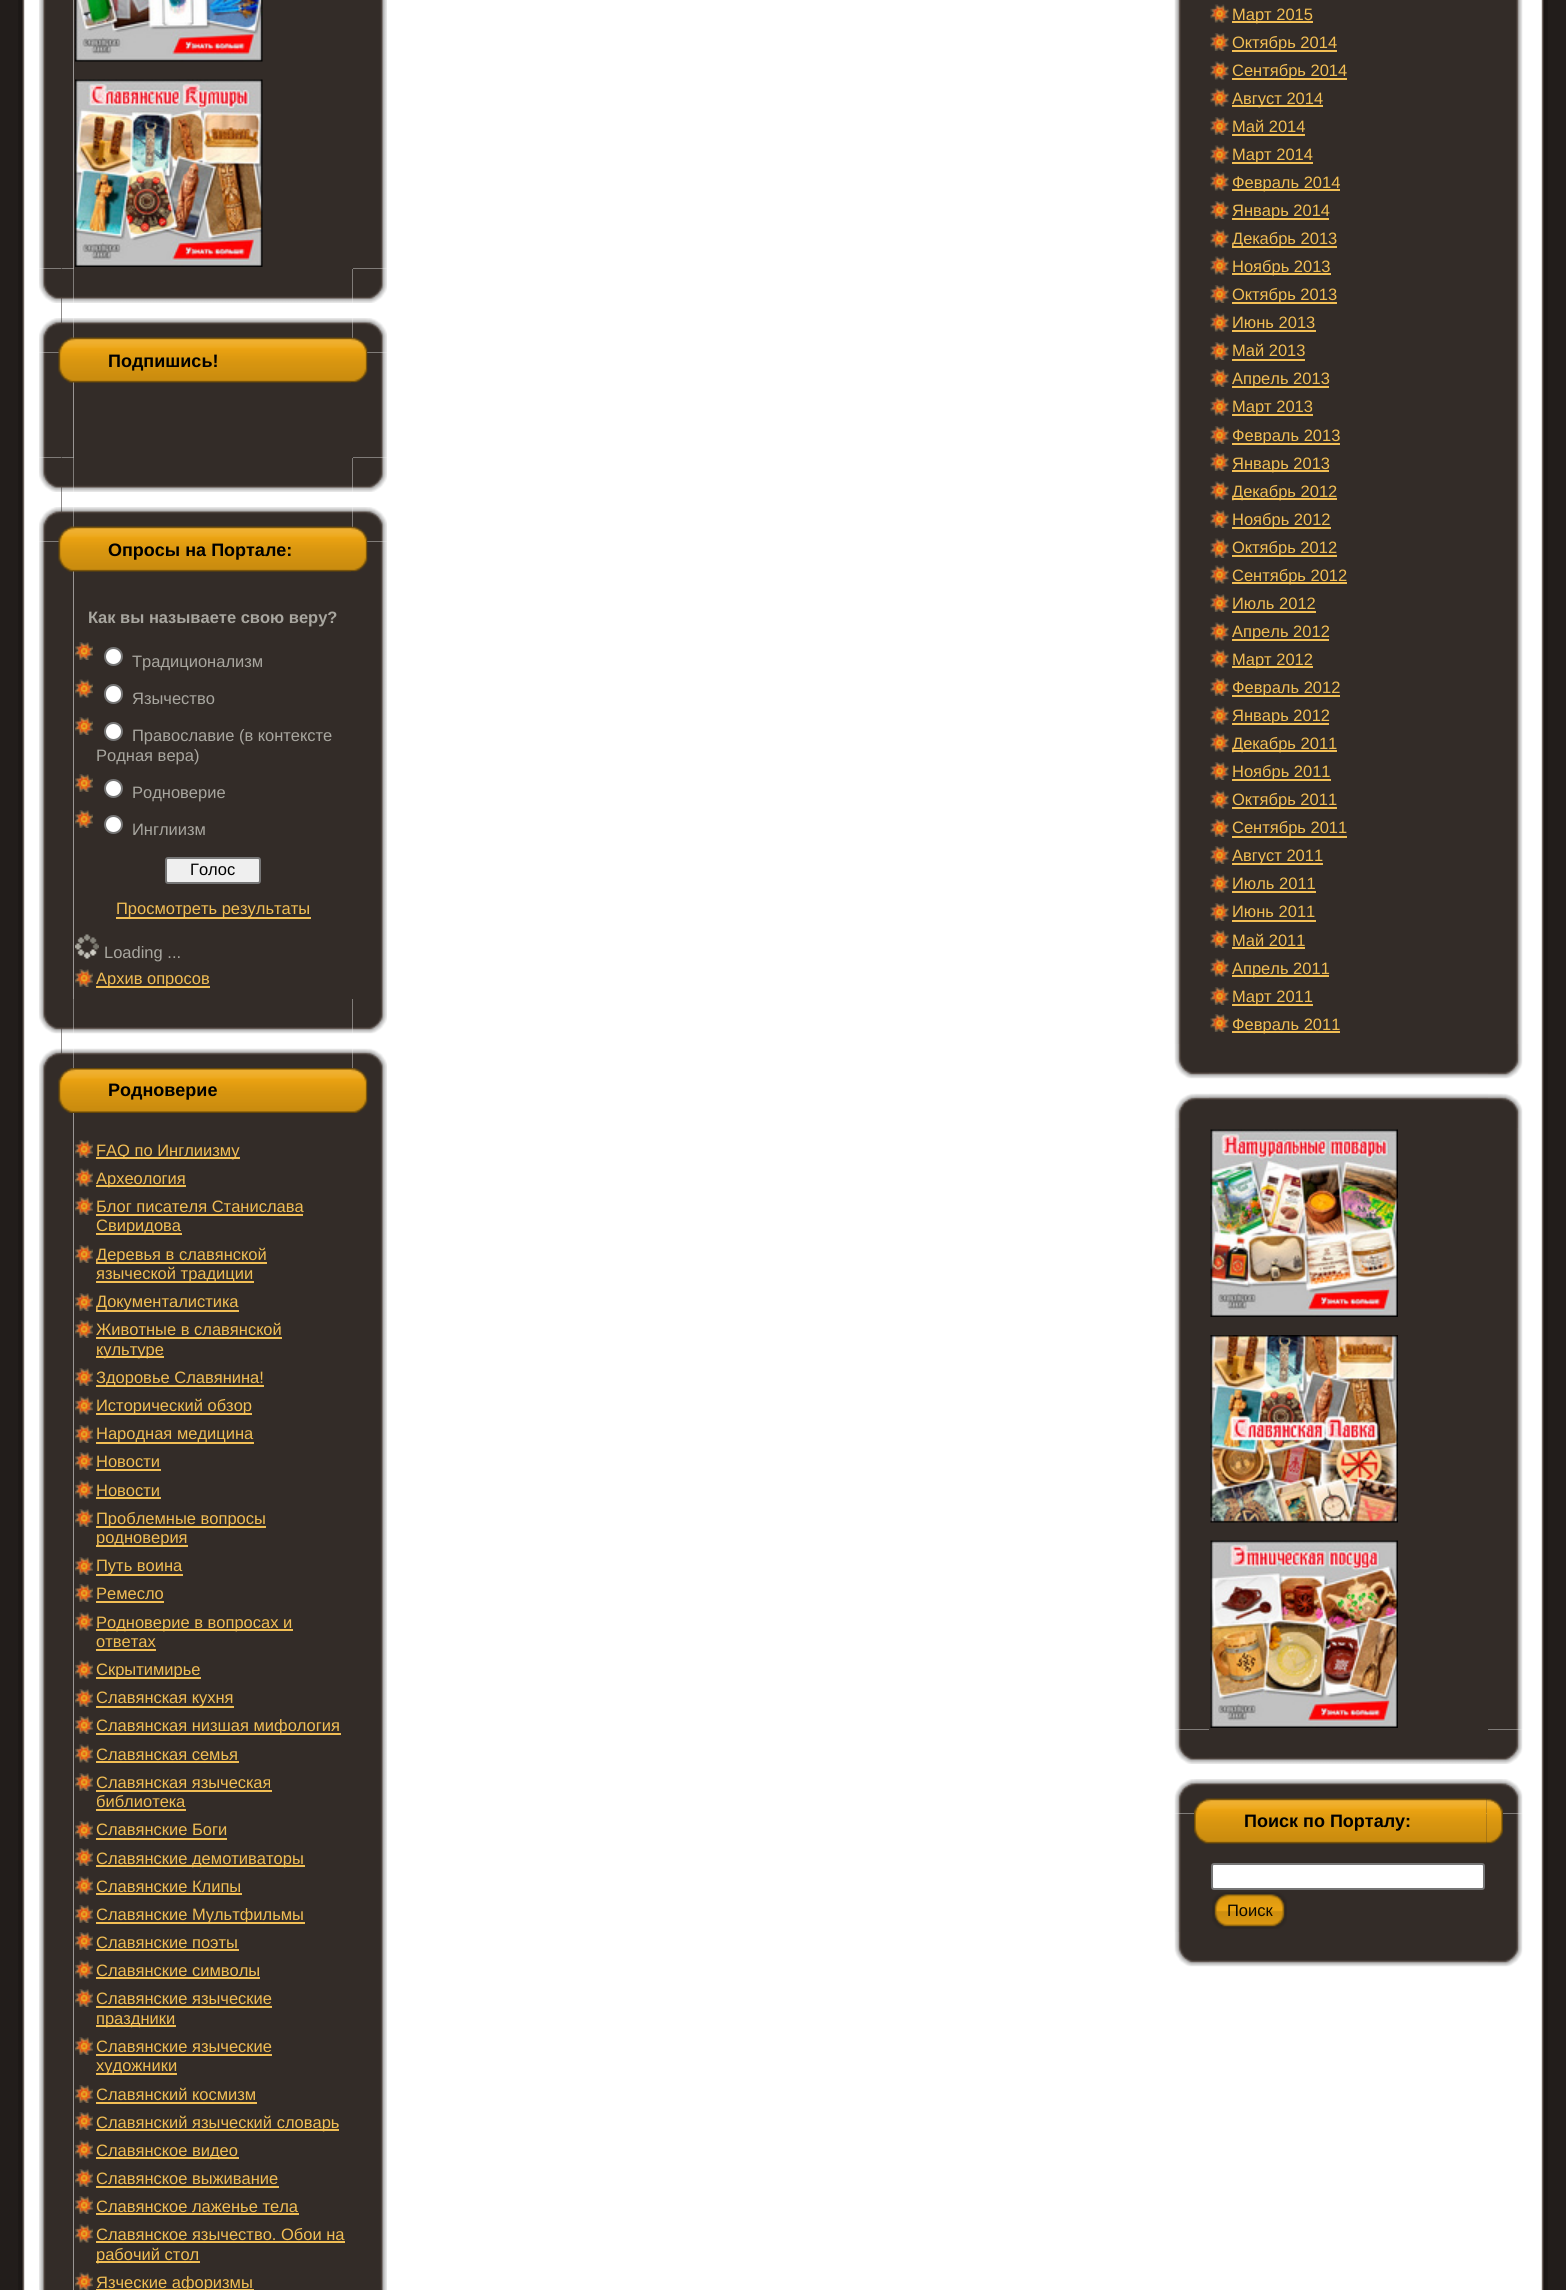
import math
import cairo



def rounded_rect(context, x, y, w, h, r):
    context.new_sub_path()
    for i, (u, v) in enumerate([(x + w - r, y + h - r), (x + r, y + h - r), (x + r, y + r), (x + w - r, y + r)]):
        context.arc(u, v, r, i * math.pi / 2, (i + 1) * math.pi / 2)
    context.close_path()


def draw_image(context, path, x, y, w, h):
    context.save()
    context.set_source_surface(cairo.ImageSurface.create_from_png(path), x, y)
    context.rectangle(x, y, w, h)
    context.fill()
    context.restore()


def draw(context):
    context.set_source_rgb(34 / 255, 29 / 255, 27 / 255)
    context.paint()
    draw_image(context, "images/1.png", 18, 0, 44, 2290)
    context.set_source_rgb(1, 1, 1)
    context.rectangle(62, 0, 1443, 2290)
    context.fill()
    draw_image(context, "images/2.png", 1505, 0, 43, 2290)
    draw_image(context, "images/7.png", 39, 268, 35, 35)
    draw_image(context, "images/9.png", 352, 268, 35, 35)
    draw_image(context, "images/8.png", 73, 268, 280, 35)
    draw_image(context, "images/3.png", 39, 0, 35, 269)
    context.set_source_rgb(51 / 255, 44 / 255, 40 / 255)
    context.rectangle(74, 0, 279, 269)
    context.fill()
    draw_image(context, "images/4.png", 75, 0, 188, 62)
    draw_image(context, "images/5.png", 75, 79, 188, 188)
    draw_image(context, "images/6.png", 353, 0, 34, 269)
    draw_image(context, "images/10.png", 39, 318, 35, 35)
    draw_image(context, "images/12.png", 352, 318, 35, 35)
    draw_image(context, "images/11.png", 73, 318, 280, 22)
    draw_image(context, "images/7.png", 39, 457, 35, 35)
    draw_image(context, "images/9.png", 352, 457, 35, 35)
    draw_image(context, "images/17.png", 73, 457, 280, 35)
    draw_image(context, "images/13.png", 39, 352, 35, 106)
    context.rectangle(74, 382, 279, 76)
    context.fill()
    draw_image(context, "images/14.png", 58, 337, 293, 46)
    draw_image(context, "images/16.png", 353, 352, 34, 106)
    draw_image(context, "images/15.png", 351, 337, 17, 46)
    draw_image(context, "images/10.png", 39, 507, 35, 35)
    draw_image(context, "images/12.png", 352, 507, 35, 35)
    draw_image(context, "images/18.png", 73, 507, 280, 22)
    draw_image(context, "images/19.png", 39, 541, 35, 458)
    context.rectangle(74, 571, 279, 428)
    context.fill()
    draw_image(context, "images/14.png", 58, 526, 293, 46)
    draw_image(context, "images/23.png", 353, 541, 34, 458)
    draw_image(context, "images/15.png", 351, 526, 17, 46)
    draw_image(context, "images/20.png", 75, 642, 18, 18)
    context.set_source_rgb(1, 1, 1)
    context.arc(113.5, 656.5, 8.5, 0, 2 * math.pi)
    context.fill_preserve()
    context.set_source_rgb(118 / 255, 118 / 255, 118 / 255)
    context.stroke()
    draw_image(context, "images/21.png", 75, 679, 18, 19)
    context.set_source_rgb(1, 1, 1)
    rounded_rect(context, 105, 685, 17, 18, 8.5)
    context.fill_preserve()
    context.set_source_rgb(118 / 255, 118 / 255, 118 / 255)
    context.stroke()
    draw_image(context, "images/20.png", 75, 717, 18, 18)
    context.set_source_rgb(1, 1, 1)
    context.arc(113.5, 731.5, 8.5, 0, 2 * math.pi)
    context.fill_preserve()
    context.set_source_rgb(118 / 255, 118 / 255, 118 / 255)
    context.stroke()
    draw_image(context, "images/20.png", 75, 774, 18, 18)
    context.set_source_rgb(1, 1, 1)
    context.arc(113.5, 788.5, 8.5, 0, 2 * math.pi)
    context.fill_preserve()
    context.set_source_rgb(118 / 255, 118 / 255, 118 / 255)
    context.stroke()
    draw_image(context, "images/20.png", 75, 810, 18, 18)
    context.set_source_rgb(1, 1, 1)
    context.arc(113.5, 824.5, 8.5, 0, 2 * math.pi)
    context.fill_preserve()
    context.set_source_rgb(118 / 255, 118 / 255, 118 / 255)
    context.stroke()
    context.set_source_rgb(239 / 255, 239 / 255, 239 / 255)
    rounded_rect(context, 166, 858, 94, 25, 2)
    context.fill_preserve()
    context.set_source_rgb(118 / 255, 118 / 255, 118 / 255)
    context.stroke()
    context.set_source_rgb(242 / 255, 190 / 255, 84 / 255)
    context.rectangle(116, 917, 195, 2)
    context.fill()
    draw_image(context, "images/22.png", 75, 934, 24, 25)
    draw_image(context, "images/20.png", 75, 969, 18, 18)
    context.rectangle(96, 986, 114, 2)
    context.fill()
    draw_image(context, "images/24.png", 39, 999, 35, 35)
    draw_image(context, "images/26.png", 352, 999, 35, 35)
    draw_image(context, "images/25.png", 73, 999, 280, 35)
    draw_image(context, "images/27.png", 39, 1048, 35, 35)
    draw_image(context, "images/29.png", 352, 1048, 35, 35)
    draw_image(context, "images/28.png", 73, 1048, 280, 22)
    draw_image(context, "images/30.png", 39, 1083, 35, 1207)
    draw_image(context, "images/31.png", 58, 1068, 293, 45)
    draw_image(context, "images/34.png", 353, 1083, 34, 1207)
    draw_image(context, "images/32.png", 351, 1068, 17, 45)
    context.set_source_rgb(51 / 255, 44 / 255, 40 / 255)
    context.rectangle(74, 1113, 279, 1177)
    context.fill()
    draw_image(context, "images/20.png", 75, 1140, 18, 18)
    context.set_source_rgb(242 / 255, 190 / 255, 84 / 255)
    context.rectangle(96, 1157, 144, 2)
    context.fill()
    draw_image(context, "images/21.png", 75, 1168, 18, 19)
    context.rectangle(96, 1185, 90, 2)
    context.fill()
    draw_image(context, "images/20.png", 75, 1197, 18, 18)
    context.rectangle(96, 1214, 207, 2)
    context.fill()
    context.rectangle(96, 1233, 86, 2)
    context.fill()
    draw_image(context, "images/20.png", 75, 1245, 18, 18)
    context.rectangle(96, 1262, 171, 2)
    context.fill()
    context.rectangle(96, 1281, 158, 2)
    context.fill()
    draw_image(context, "images/20.png", 75, 1293, 18, 18)
    context.rectangle(96, 1310, 143, 2)
    context.fill()
    draw_image(context, "images/20.png", 75, 1320, 18, 18)
    context.rectangle(96, 1337, 186, 2)
    context.fill()
    context.rectangle(96, 1356, 68, 2)
    context.fill()
    draw_image(context, "images/20.png", 75, 1368, 18, 18)
    context.rectangle(96, 1385, 168, 2)
    context.fill()
    draw_image(context, "images/21.png", 75, 1396, 18, 19)
    context.rectangle(96, 1413, 156, 2)
    context.fill()
    draw_image(context, "images/20.png", 75, 1425, 18, 18)
    context.rectangle(96, 1442, 158, 2)
    context.fill()
    draw_image(context, "images/20.png", 75, 1452, 18, 18)
    context.rectangle(96, 1469, 65, 2)
    context.fill()
    draw_image(context, "images/21.png", 75, 1480, 18, 19)
    context.rectangle(96, 1497, 65, 2)
    context.fill()
    draw_image(context, "images/20.png", 75, 1509, 18, 18)
    context.rectangle(96, 1526, 170, 2)
    context.fill()
    context.rectangle(96, 1545, 92, 2)
    context.fill()
    draw_image(context, "images/20.png", 75, 1557, 18, 18)
    context.rectangle(96, 1574, 87, 2)
    context.fill()
    draw_image(context, "images/20.png", 75, 1584, 18, 18)
    context.rectangle(96, 1601, 68, 2)
    context.fill()
    draw_image(context, "images/21.png", 75, 1612, 18, 19)
    context.rectangle(96, 1629, 197, 2)
    context.fill()
    context.rectangle(96, 1649, 60, 2)
    context.fill()
    draw_image(context, "images/21.png", 75, 1660, 18, 19)
    context.rectangle(96, 1677, 105, 2)
    context.fill()
    draw_image(context, "images/20.png", 75, 1689, 18, 18)
    context.rectangle(96, 1706, 138, 2)
    context.fill()
    draw_image(context, "images/20.png", 75, 1716, 18, 18)
    context.rectangle(96, 1733, 245, 2)
    context.fill()
    draw_image(context, "images/21.png", 75, 1744, 18, 19)
    context.rectangle(96, 1761, 143, 2)
    context.fill()
    draw_image(context, "images/20.png", 75, 1773, 18, 18)
    context.rectangle(96, 1790, 176, 2)
    context.fill()
    context.rectangle(96, 1809, 90, 2)
    context.fill()
    draw_image(context, "images/20.png", 75, 1821, 18, 18)
    context.rectangle(96, 1838, 131, 2)
    context.fill()
    draw_image(context, "images/20.png", 75, 1848, 18, 18)
    context.rectangle(96, 1865, 209, 2)
    context.fill()
    draw_image(context, "images/21.png", 75, 1876, 18, 19)
    context.rectangle(96, 1893, 146, 2)
    context.fill()
    draw_image(context, "images/20.png", 75, 1905, 18, 18)
    context.rectangle(96, 1922, 209, 2)
    context.fill()
    draw_image(context, "images/20.png", 75, 1932, 18, 18)
    context.rectangle(96, 1949, 143, 2)
    context.fill()
    draw_image(context, "images/21.png", 75, 1960, 18, 19)
    context.rectangle(96, 1977, 164, 2)
    context.fill()
    draw_image(context, "images/20.png", 75, 1989, 18, 18)
    context.rectangle(96, 2006, 176, 2)
    context.fill()
    context.rectangle(96, 2025, 80, 2)
    context.fill()
    draw_image(context, "images/20.png", 75, 2037, 18, 18)
    context.rectangle(96, 2054, 176, 2)
    context.fill()
    context.rectangle(96, 2073, 81, 2)
    context.fill()
    draw_image(context, "images/20.png", 75, 2085, 18, 18)
    context.rectangle(96, 2102, 161, 2)
    context.fill()
    draw_image(context, "images/20.png", 75, 2112, 18, 18)
    context.rectangle(96, 2129, 243, 2)
    context.fill()
    draw_image(context, "images/21.png", 75, 2140, 18, 19)
    context.rectangle(96, 2157, 143, 2)
    context.fill()
    draw_image(context, "images/20.png", 75, 2169, 18, 18)
    context.rectangle(96, 2186, 183, 2)
    context.fill()
    draw_image(context, "images/20.png", 75, 2196, 18, 18)
    context.rectangle(96, 2213, 203, 2)
    context.fill()
    draw_image(context, "images/21.png", 75, 2224, 18, 19)
    context.rectangle(96, 2241, 249, 2)
    context.fill()
    context.rectangle(96, 2261, 104, 2)
    context.fill()
    draw_image(context, "images/33.png", 75, 2272, 18, 18)
    context.rectangle(96, 2289, 158, 1)
    context.fill()
    draw_image(context, "images/35.png", 1174, 0, 35, 1044)
    context.set_source_rgb(51 / 255, 44 / 255, 40 / 255)
    context.rectangle(1209, 0, 279, 1044)
    context.fill()
    draw_image(context, "images/36.png", 1488, 0, 35, 1044)
    draw_image(context, "images/37.png", 1210, 4, 19, 19)
    context.set_source_rgb(242 / 255, 190 / 255, 84 / 255)
    context.rectangle(1232, 21, 81, 2)
    context.fill()
    draw_image(context, "images/38.png", 1210, 33, 19, 18)
    context.rectangle(1232, 50, 105, 2)
    context.fill()
    draw_image(context, "images/37.png", 1210, 61, 19, 19)
    context.rectangle(1232, 78, 115, 2)
    context.fill()
    draw_image(context, "images/37.png", 1210, 88, 19, 19)
    context.rectangle(1232, 105, 91, 2)
    context.fill()
    draw_image(context, "images/38.png", 1210, 117, 19, 18)
    context.rectangle(1232, 134, 73, 2)
    context.fill()
    draw_image(context, "images/37.png", 1210, 145, 19, 19)
    context.rectangle(1232, 162, 81, 2)
    context.fill()
    draw_image(context, "images/37.png", 1210, 172, 19, 19)
    context.rectangle(1232, 189, 108, 2)
    context.fill()
    draw_image(context, "images/38.png", 1210, 201, 19, 18)
    context.rectangle(1232, 218, 97, 2)
    context.fill()
    draw_image(context, "images/37.png", 1210, 229, 19, 19)
    context.rectangle(1232, 246, 105, 2)
    context.fill()
    draw_image(context, "images/37.png", 1210, 256, 19, 19)
    context.rectangle(1232, 273, 99, 2)
    context.fill()
    draw_image(context, "images/38.png", 1210, 285, 19, 18)
    context.rectangle(1232, 302, 105, 2)
    context.fill()
    draw_image(context, "images/37.png", 1210, 313, 19, 19)
    context.rectangle(1232, 330, 84, 2)
    context.fill()
    draw_image(context, "images/38.png", 1210, 342, 19, 18)
    context.rectangle(1232, 359, 73, 2)
    context.fill()
    draw_image(context, "images/38.png", 1210, 369, 19, 18)
    context.rectangle(1232, 386, 97, 2)
    context.fill()
    draw_image(context, "images/37.png", 1210, 397, 19, 19)
    context.rectangle(1232, 414, 81, 2)
    context.fill()
    draw_image(context, "images/38.png", 1210, 426, 19, 18)
    context.rectangle(1232, 443, 108, 2)
    context.fill()
    draw_image(context, "images/38.png", 1210, 453, 19, 18)
    context.rectangle(1232, 470, 97, 2)
    context.fill()
    draw_image(context, "images/37.png", 1210, 481, 19, 19)
    context.rectangle(1232, 498, 105, 2)
    context.fill()
    draw_image(context, "images/38.png", 1210, 510, 19, 18)
    context.rectangle(1232, 527, 99, 2)
    context.fill()
    draw_image(context, "images/39.png", 1210, 538, 19, 20)
    context.rectangle(1232, 555, 105, 2)
    context.fill()
    draw_image(context, "images/37.png", 1210, 565, 19, 19)
    context.rectangle(1232, 582, 115, 2)
    context.fill()
    draw_image(context, "images/38.png", 1210, 594, 19, 18)
    context.rectangle(1232, 611, 84, 2)
    context.fill()
    draw_image(context, "images/37.png", 1210, 622, 19, 19)
    context.rectangle(1232, 639, 97, 2)
    context.fill()
    draw_image(context, "images/37.png", 1210, 649, 19, 19)
    context.rectangle(1232, 666, 81, 2)
    context.fill()
    draw_image(context, "images/38.png", 1210, 678, 19, 18)
    context.rectangle(1232, 695, 108, 2)
    context.fill()
    draw_image(context, "images/37.png", 1210, 706, 19, 19)
    context.rectangle(1232, 723, 97, 2)
    context.fill()
    draw_image(context, "images/37.png", 1210, 733, 19, 19)
    context.rectangle(1232, 750, 105, 2)
    context.fill()
    draw_image(context, "images/38.png", 1210, 762, 19, 18)
    context.rectangle(1232, 779, 99, 2)
    context.fill()
    draw_image(context, "images/37.png", 1210, 790, 19, 19)
    context.rectangle(1232, 807, 105, 2)
    context.fill()
    draw_image(context, "images/38.png", 1210, 819, 19, 18)
    context.rectangle(1232, 836, 115, 2)
    context.fill()
    draw_image(context, "images/38.png", 1210, 846, 19, 18)
    context.rectangle(1232, 863, 91, 2)
    context.fill()
    draw_image(context, "images/37.png", 1210, 874, 19, 19)
    context.rectangle(1232, 891, 84, 2)
    context.fill()
    draw_image(context, "images/38.png", 1210, 903, 19, 18)
    context.rectangle(1232, 920, 84, 2)
    context.fill()
    draw_image(context, "images/38.png", 1210, 930, 19, 18)
    context.rectangle(1232, 947, 73, 2)
    context.fill()
    draw_image(context, "images/37.png", 1210, 958, 19, 19)
    context.rectangle(1232, 975, 97, 2)
    context.fill()
    draw_image(context, "images/38.png", 1210, 987, 19, 18)
    context.rectangle(1232, 1004, 81, 2)
    context.fill()
    draw_image(context, "images/38.png", 1210, 1014, 19, 18)
    context.rectangle(1232, 1031, 108, 2)
    context.fill()
    draw_image(context, "images/40.png", 1174, 1044, 35, 35)
    draw_image(context, "images/41.png", 1209, 1044, 279, 35)
    draw_image(context, "images/42.png", 1488, 1044, 35, 35)
    draw_image(context, "images/43.png", 1174, 1093, 35, 35)
    draw_image(context, "images/44.png", 1209, 1093, 279, 35)
    draw_image(context, "images/45.png", 1488, 1093, 35, 35)
    draw_image(context, "images/51.png", 1174, 1729, 35, 35)
    draw_image(context, "images/46.png", 1174, 1128, 35, 602)
    context.set_source_rgb(51 / 255, 44 / 255, 40 / 255)
    context.rectangle(1209, 1128, 279, 602)
    context.fill()
    draw_image(context, "images/53.png", 1488, 1729, 35, 35)
    draw_image(context, "images/47.png", 1488, 1128, 35, 602)
    draw_image(context, "images/48.png", 1210, 1129, 188, 188)
    draw_image(context, "images/49.png", 1210, 1335, 188, 188)
    draw_image(context, "images/50.png", 1210, 1540, 188, 188)
    draw_image(context, "images/52.png", 1209, 1730, 279, 34)
    draw_image(context, "images/54.png", 1174, 1779, 35, 35)
    draw_image(context, "images/55.png", 1209, 1779, 279, 35)
    draw_image(context, "images/56.png", 1488, 1779, 35, 35)
    draw_image(context, "images/57.png", 1174, 1813, 35, 119)
    context.rectangle(1209, 1814, 279, 118)
    context.fill()
    draw_image(context, "images/58.png", 1488, 1813, 35, 119)
    draw_image(context, "images/59.png", 1194, 1798, 293, 46)
    draw_image(context, "images/60.png", 1486, 1798, 17, 46)
    context.set_source_rgb(1, 1, 1)
    rounded_rect(context, 1212, 1864, 272, 25, 2)
    context.fill_preserve()
    context.set_source_rgb(118 / 255, 118 / 255, 118 / 255)
    context.stroke()
    draw_image(context, "images/61.png", 1212, 1892, 54, 37)
    draw_image(context, "images/62.png", 1266, 1892, 21, 37)
    draw_image(context, "images/40.png", 1174, 1932, 35, 35)
    draw_image(context, "images/41.png", 1209, 1932, 279, 35)
    draw_image(context, "images/42.png", 1488, 1932, 35, 35)
    context.select_font_face("Liberation Sans", cairo.FontSlant.NORMAL, cairo.FontWeight.BOLD)
    context.set_font_size(18)
    context.set_source_rgb(0, 0, 0)
    context.move_to(108, 367)
    context.show_text("Подпишись!")
    context.move_to(108, 556)
    context.show_text("Опросы на Портале:")
    context.set_font_size(16.5)
    context.set_source_rgb(168 / 255, 166 / 255, 159 / 255)
    context.move_to(88, 623)
    context.show_text("Как вы называете свою веру?")
    context.select_font_face("Liberation Sans")
    context.move_to(132, 667)
    context.show_text("Традиционализм")
    context.move_to(132, 704)
    context.show_text("Язычество")
    context.move_to(132, 741)
    context.show_text("Православие (в контексте")
    context.move_to(96, 761)
    context.show_text("Родная вера)")
    context.move_to(132, 798)
    context.show_text("Родноверие")
    context.move_to(132, 835)
    context.show_text("Инглиизм")
    context.set_source_rgb(0, 0, 0)
    context.move_to(190, 875)
    context.show_text("Голос")
    context.set_source_rgb(242 / 255, 190 / 255, 84 / 255)
    context.move_to(116, 914)
    context.show_text("Просмотреть результаты")
    context.set_source_rgb(168 / 255, 166 / 255, 159 / 255)
    context.move_to(104, 958)
    context.show_text("Loading ...")
    context.set_source_rgb(242 / 255, 190 / 255, 84 / 255)
    context.move_to(96, 984)
    context.show_text("Архив опросов")
    context.select_font_face("Liberation Sans", cairo.FontSlant.NORMAL, cairo.FontWeight.BOLD)
    context.set_font_size(18)
    context.set_source_rgb(0, 0, 0)
    context.move_to(108, 1096)
    context.show_text("Родноверие")
    context.select_font_face("Liberation Sans")
    context.set_font_size(16.5)
    context.set_source_rgb(242 / 255, 190 / 255, 84 / 255)
    context.move_to(96, 1156)
    context.show_text("FAQ по Инглиизму")
    context.move_to(96, 1184)
    context.show_text("Археология")
    context.move_to(96, 1212)
    context.show_text("Блог писателя Станислава")
    context.move_to(96, 1231)
    context.show_text("Свиридова")
    context.move_to(96, 1260)
    context.show_text("Деревья в славянской")
    context.move_to(96, 1279)
    context.show_text("языческой традиции")
    context.move_to(96, 1307)
    context.show_text("Документалистика")
    context.move_to(96, 1335)
    context.show_text("Животные в славянской")
    context.move_to(96, 1355)
    context.show_text("культуре")
    context.move_to(96, 1383)
    context.show_text("Здоровье Славянина!")
    context.move_to(96, 1411)
    context.show_text("Исторический обзор")
    context.move_to(96, 1439)
    context.show_text("Народная медицина")
    context.move_to(96, 1467)
    context.show_text("Новости")
    context.move_to(96, 1496)
    context.show_text("Новости")
    context.move_to(96, 1524)
    context.show_text("Проблемные вопросы")
    context.move_to(96, 1543)
    context.show_text("родноверия")
    context.move_to(96, 1571)
    context.show_text("Путь воина")
    context.move_to(96, 1599)
    context.show_text("Ремесло")
    context.move_to(96, 1628)
    context.show_text("Родноверие в вопросах и")
    context.move_to(96, 1647)
    context.show_text("ответах")
    context.move_to(96, 1675)
    context.show_text("Скрытимирье")
    context.move_to(96, 1703)
    context.show_text("Славянская кухня")
    context.move_to(96, 1731)
    context.show_text("Славянская низшая мифология")
    context.move_to(96, 1760)
    context.show_text("Славянская семья")
    context.move_to(96, 1788)
    context.show_text("Славянская языческая")
    context.move_to(96, 1807)
    context.show_text("библиотека")
    context.move_to(96, 1835)
    context.show_text("Славянские Боги")
    context.move_to(96, 1864)
    context.show_text("Славянские демотиваторы")
    context.move_to(96, 1892)
    context.show_text("Славянские Клипы")
    context.move_to(96, 1920)
    context.show_text("Славянские Мультфильмы")
    context.move_to(96, 1948)
    context.show_text("Славянские поэты")
    context.move_to(96, 1976)
    context.show_text("Славянские символы")
    context.move_to(96, 2004)
    context.show_text("Славянские языческие")
    context.move_to(96, 2024)
    context.show_text("праздники")
    context.move_to(96, 2052)
    context.show_text("Славянские языческие")
    context.move_to(96, 2071)
    context.show_text("художники")
    context.move_to(96, 2100)
    context.show_text("Славянский космизм")
    context.move_to(96, 2128)
    context.show_text("Славянский языческий словарь")
    context.move_to(96, 2156)
    context.show_text("Славянское видео")
    context.move_to(96, 2184)
    context.show_text("Славянское выживание")
    context.move_to(96, 2212)
    context.show_text("Славянское лаженье тела")
    context.move_to(96, 2240)
    context.show_text("Славянское язычество. Обои на")
    context.move_to(96, 2260)
    context.show_text("рабочий стол")
    context.move_to(96, 2288)
    context.show_text("Язческие афоризмы")
    context.move_to(1232, 20)
    context.show_text("Март 2015")
    context.move_to(1232, 48)
    context.show_text("Октябрь 2014")
    context.move_to(1232, 76)
    context.show_text("Сентябрь 2014")
    context.move_to(1232, 104)
    context.show_text("Август 2014")
    context.move_to(1232, 132)
    context.show_text("Май 2014")
    context.move_to(1232, 160)
    context.show_text("Март 2014")
    context.move_to(1232, 188)
    context.show_text("Февраль 2014")
    context.move_to(1232, 216)
    context.show_text("Январь 2014")
    context.move_to(1232, 244)
    context.show_text("Декабрь 2013")
    context.move_to(1232, 272)
    context.show_text("Ноябрь 2013")
    context.move_to(1232, 300)
    context.show_text("Октябрь 2013")
    context.move_to(1232, 328)
    context.show_text("Июнь 2013")
    context.move_to(1232, 356)
    context.show_text("Май 2013")
    context.move_to(1232, 384)
    context.show_text("Апрель 2013")
    context.move_to(1232, 412)
    context.show_text("Март 2013")
    context.move_to(1232, 441)
    context.show_text("Февраль 2013")
    context.move_to(1232, 469)
    context.show_text("Январь 2013")
    context.move_to(1232, 497)
    context.show_text("Декабрь 2012")
    context.move_to(1232, 525)
    context.show_text("Ноябрь 2012")
    context.move_to(1232, 553)
    context.show_text("Октябрь 2012")
    context.move_to(1232, 581)
    context.show_text("Сентябрь 2012")
    context.move_to(1232, 609)
    context.show_text("Июль 2012")
    context.move_to(1232, 637)
    context.show_text("Апрель 2012")
    context.move_to(1232, 665)
    context.show_text("Март 2012")
    context.move_to(1232, 693)
    context.show_text("Февраль 2012")
    context.move_to(1232, 721)
    context.show_text("Январь 2012")
    context.move_to(1232, 749)
    context.show_text("Декабрь 2011")
    context.move_to(1232, 777)
    context.show_text("Ноябрь 2011")
    context.move_to(1232, 805)
    context.show_text("Октябрь 2011")
    context.move_to(1232, 833)
    context.show_text("Сентябрь 2011")
    context.move_to(1232, 861)
    context.show_text("Август 2011")
    context.move_to(1232, 889)
    context.show_text("Июль 2011")
    context.move_to(1232, 917)
    context.show_text("Июнь 2011")
    context.move_to(1232, 946)
    context.show_text("Май 2011")
    context.move_to(1232, 974)
    context.show_text("Апрель 2011")
    context.move_to(1232, 1002)
    context.show_text("Март 2011")
    context.move_to(1232, 1030)
    context.show_text("Февраль 2011")
    context.select_font_face("Liberation Sans", cairo.FontSlant.NORMAL, cairo.FontWeight.BOLD)
    context.set_font_size(18)
    context.set_source_rgb(0, 0, 0)
    context.move_to(1244, 1827)
    context.show_text("Поиск по Порталу:")
    context.select_font_face("Liberation Sans")
    context.set_font_size(16.5)
    context.set_source_rgb(14 / 255, 10 / 255, 1 / 255)
    context.move_to(1227, 1916)
    context.show_text("Поиск")


surface = cairo.ImageSurface(cairo.Format.RGB24, 1566, 2290)
context = cairo.Context(surface)
options = cairo.FontOptions()
options.set_hint_metrics(cairo.HintMetrics.OFF)
options.set_hint_style(cairo.HintStyle.NONE)
context.set_font_options(options)
context.set_miter_limit(4)
draw(context)
surface.write_to_png("out.png")
